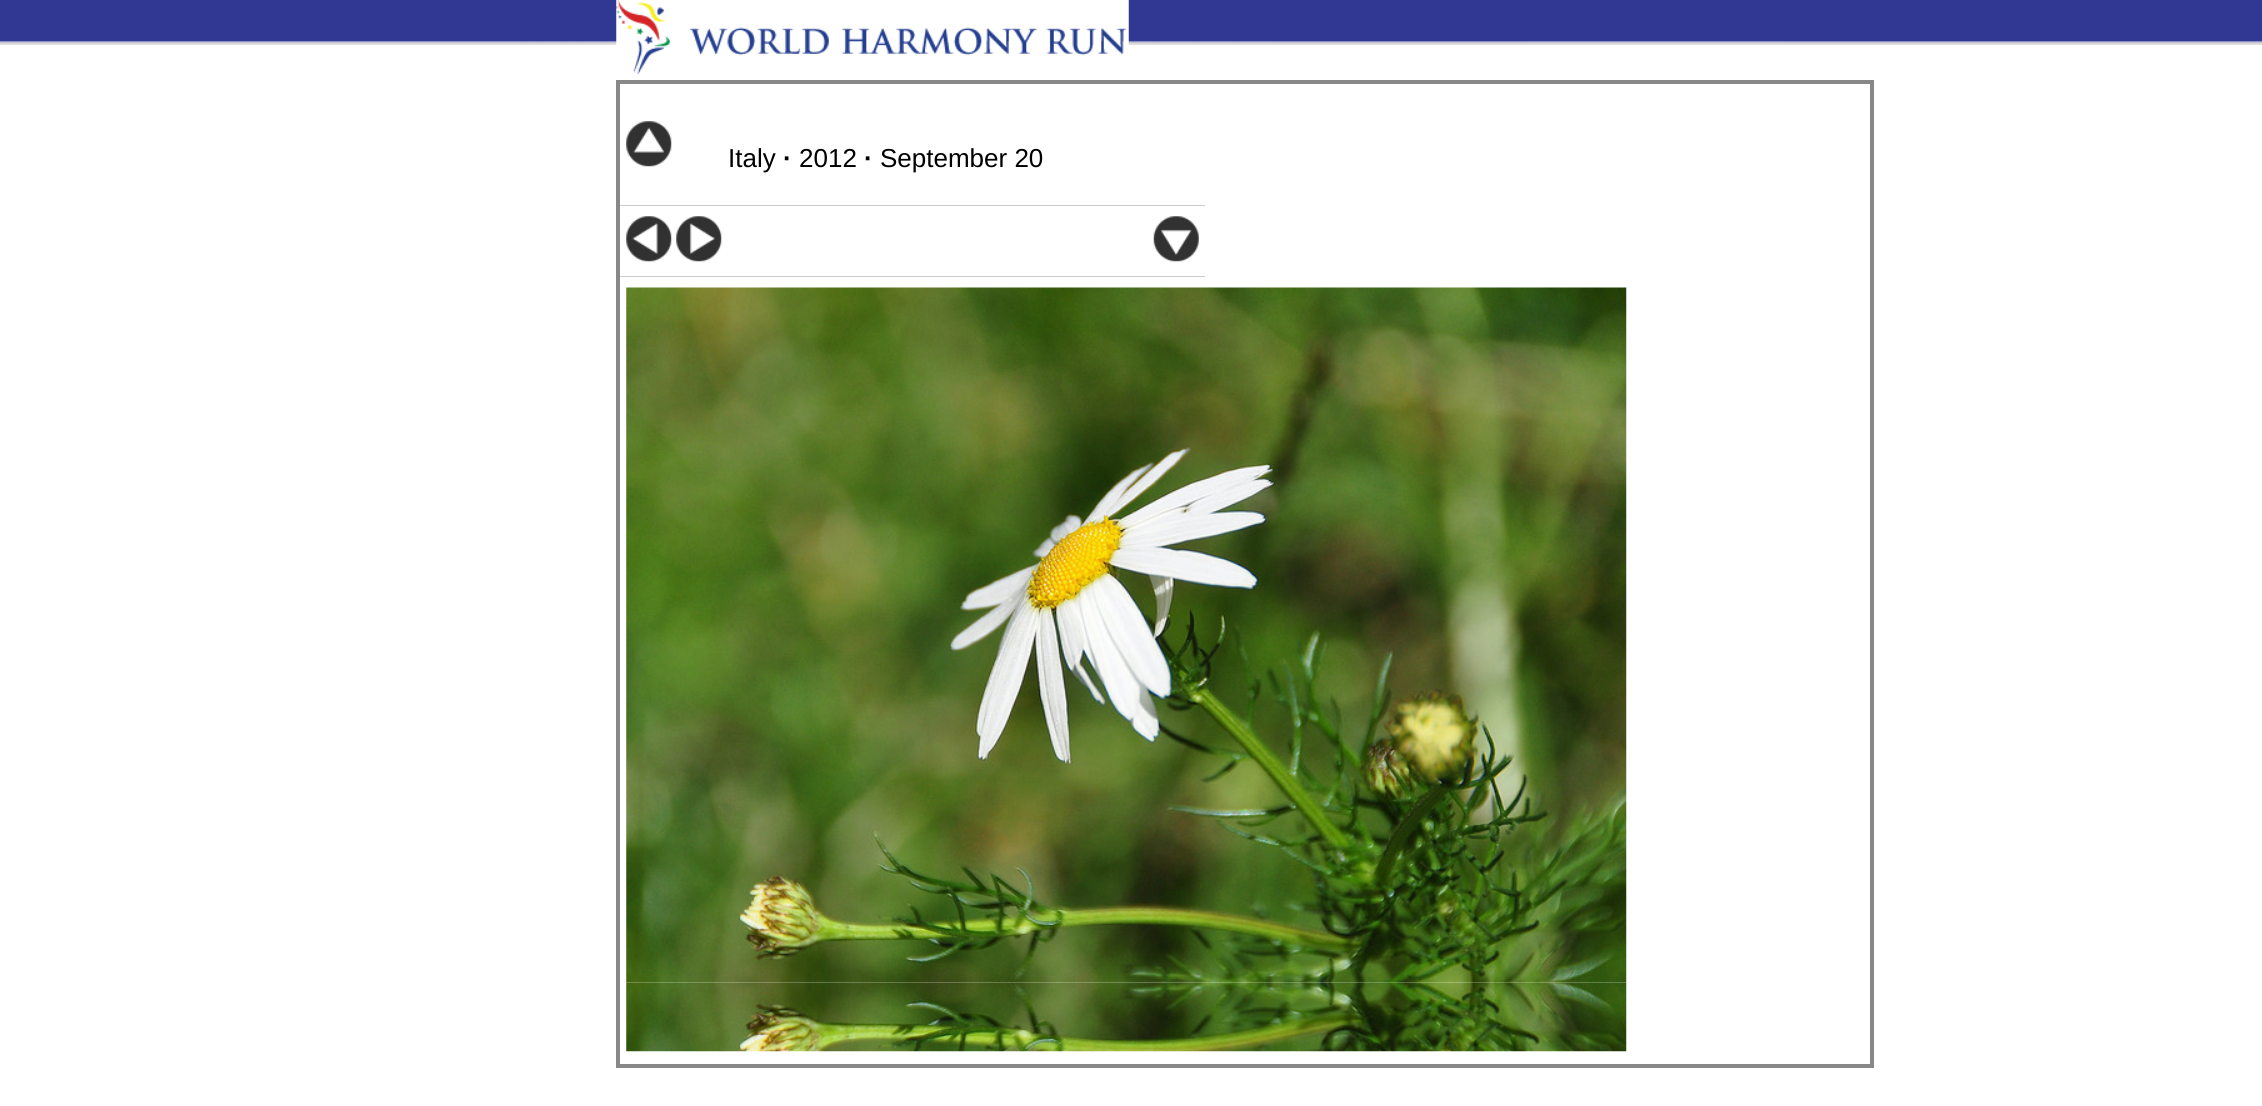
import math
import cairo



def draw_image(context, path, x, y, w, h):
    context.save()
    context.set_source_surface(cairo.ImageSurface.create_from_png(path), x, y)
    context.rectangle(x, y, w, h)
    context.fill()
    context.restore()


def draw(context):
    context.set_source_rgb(1, 1, 1)
    context.paint()
    draw_image(context, "images/1.png", 0, 0, 2262, 45)
    draw_image(context, "images/2.png", 616, 0, 513, 75)
    context.rectangle(618, 82, 1254, 984)
    context.set_source_rgb(136 / 255, 136 / 255, 136 / 255)
    context.set_line_width(4)
    context.stroke()
    draw_image(context, "images/3.png", 626, 121, 46, 46)
    context.set_source_rgb(204 / 255, 204 / 255, 204 / 255)
    context.rectangle(620, 205, 585, 1)
    context.fill()
    draw_image(context, "images/4.png", 626, 216, 46, 46)
    draw_image(context, "images/5.png", 676, 216, 46, 46)
    draw_image(context, "images/6.png", 1153, 216, 46, 46)
    context.rectangle(620, 276, 585, 1)
    context.fill()
    draw_image(context, "images/7.png", 626, 287, 1001, 696)
    draw_image(context, "images/8.png", 626, 982, 1001, 70)
    context.select_font_face("Liberation Sans")
    context.set_font_size(26)
    context.set_source_rgb(0, 0, 0)
    context.move_to(728, 167)
    context.show_text("Italy")
    context.select_font_face("Liberation Sans", cairo.FontSlant.NORMAL, cairo.FontWeight.BOLD)
    context.move_to(783, 167)
    context.show_text("·")
    context.select_font_face("Liberation Sans")
    context.move_to(799, 167)
    context.show_text("2012")
    context.select_font_face("Liberation Sans", cairo.FontSlant.NORMAL, cairo.FontWeight.BOLD)
    context.move_to(864, 167)
    context.show_text("·")
    context.select_font_face("Liberation Sans")
    context.move_to(880, 167)
    context.show_text("September 20")


surface = cairo.ImageSurface(cairo.Format.RGB24, 2262, 1106)
context = cairo.Context(surface)
options = cairo.FontOptions()
options.set_hint_metrics(cairo.HintMetrics.OFF)
options.set_hint_style(cairo.HintStyle.NONE)
context.set_font_options(options)
context.set_miter_limit(4)
draw(context)
surface.write_to_png("out.png")
